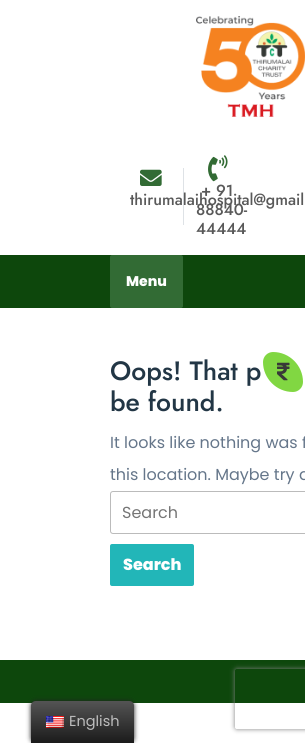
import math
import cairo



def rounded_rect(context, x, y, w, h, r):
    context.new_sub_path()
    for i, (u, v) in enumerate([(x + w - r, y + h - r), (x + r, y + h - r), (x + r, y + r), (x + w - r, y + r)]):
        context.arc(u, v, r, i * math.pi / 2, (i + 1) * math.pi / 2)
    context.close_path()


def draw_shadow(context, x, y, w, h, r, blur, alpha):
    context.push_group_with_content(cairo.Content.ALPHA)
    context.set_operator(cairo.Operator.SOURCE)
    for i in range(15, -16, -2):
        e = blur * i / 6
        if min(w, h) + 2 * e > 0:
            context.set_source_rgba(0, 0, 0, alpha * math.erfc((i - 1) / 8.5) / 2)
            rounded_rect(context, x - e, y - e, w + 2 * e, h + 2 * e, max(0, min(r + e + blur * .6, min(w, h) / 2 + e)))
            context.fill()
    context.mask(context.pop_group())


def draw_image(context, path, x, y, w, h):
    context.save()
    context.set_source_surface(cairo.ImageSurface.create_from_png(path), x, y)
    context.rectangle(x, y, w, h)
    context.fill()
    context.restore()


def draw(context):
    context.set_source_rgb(1, 1, 1)
    context.paint()
    draw_image(context, "images/1.png", 196, 16, 109, 101)
    draw_image(context, "images/2.png", 208, 155, 20, 27)
    context.set_source_rgb(222 / 255, 226 / 255, 230 / 255)
    context.rectangle(183, 168, 1, 57)
    context.fill()
    draw_image(context, "images/3.png", 140, 169, 22, 17)
    context.set_source_rgb(13 / 255, 71 / 255, 12 / 255)
    context.rectangle(0, 255, 305, 53)
    context.fill()
    context.set_source_rgb(50 / 255, 107 / 255, 52 / 255)
    rounded_rect(context, 110, 255, 73, 53, 2)
    context.fill()
    context.set_source_rgb(129 / 255, 215 / 255, 66 / 255)
    context.new_path()
    context.move_to(273, 352)
    context.curve_to(289.5, 352, 303, 365.5, 303, 382)
    context.curve_to(303, 387.5, 298.5, 392, 293, 392)
    context.curve_to(276.5, 392, 263, 378.5, 263, 362)
    context.curve_to(263, 356.5, 267.5, 352, 273, 352)
    context.close_path()
    context.fill()
    draw_image(context, "images/4.png", 277, 362, 13, 19)
    rounded_rect(context, 110.5, 491.5, 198, 42, 2.5)
    context.set_source_rgb(187 / 255, 187 / 255, 187 / 255)
    context.set_line_width(1)
    context.stroke()
    context.set_source_rgb(34 / 255, 182 / 255, 184 / 255)
    rounded_rect(context, 110, 544, 84, 42, 2)
    context.fill()
    context.set_source_rgb(13 / 255, 71 / 255, 12 / 255)
    context.rectangle(0, 660, 305, 43)
    context.fill()
    context.set_source_rgb(33 / 255, 33 / 255, 33 / 255)
    draw_shadow(context, 31, 701, 103, 42, 5, 2.5, 1)
    gradient = cairo.LinearGradient(83, 743, 83, 701)
    gradient.add_color_stop_rgba(0, 27 / 255, 27 / 255, 27 / 255, 1)
    gradient.add_color_stop_rgba(1, 84 / 255, 84 / 255, 84 / 255, 1)
    context.set_source(gradient)
    context.new_path()
    context.move_to(36, 701)
    context.line_to(129, 701)
    context.curve_to(132, 701, 134, 703, 134, 706)
    context.line_to(134, 743)
    context.line_to(31, 743)
    context.line_to(31, 706)
    context.curve_to(31, 703, 33, 701, 36, 701)
    context.close_path()
    context.fill()
    draw_image(context, "images/5.png", 46, 716, 18, 12)
    context.save()
    context.set_fill_rule(cairo.FillRule.EVEN_ODD)
    context.new_path()
    context.move_to(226, 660)
    context.line_to(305, 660)
    context.line_to(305, 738)
    context.line_to(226, 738)
    context.close_path()
    context.move_to(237, 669)
    context.line_to(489, 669)
    context.curve_to(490, 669, 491, 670, 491, 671)
    context.line_to(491, 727)
    context.curve_to(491, 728, 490, 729, 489, 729)
    context.line_to(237, 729)
    context.curve_to(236, 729, 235, 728, 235, 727)
    context.line_to(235, 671)
    context.curve_to(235, 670, 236, 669, 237, 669)
    context.close_path()
    context.clip()
    context.set_source_rgb(128 / 255, 128 / 255, 128 / 255)
    draw_shadow(context, 235, 669, 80, 60, 2, 2.5, 1)
    context.restore()
    context.select_font_face("Jost Medium")
    context.set_font_size(16)
    context.set_source_rgb(89 / 255, 89 / 255, 89 / 255)
    context.move_to(201, 196)
    context.show_text("+ 91")
    context.move_to(196, 234)
    context.show_text("44444")
    context.move_to(130, 205)
    context.show_text("thirumalaihospital@gmail")
    context.move_to(196, 215)
    context.show_text("88840-")
    context.select_font_face("Poppins ExtraBold")
    context.set_font_size(14)
    context.set_source_rgb(1, 1, 1)
    context.move_to(126, 286)
    context.show_text("Menu")
    context.select_font_face("Jost Medium")
    context.set_font_size(26.5)
    context.set_source_rgb(34 / 255, 54 / 255, 69 / 255)
    context.move_to(110, 380)
    context.show_text("Oops! That p")
    context.move_to(110, 411)
    context.show_text("be found.")
    context.select_font_face("Poppins")
    context.set_font_size(16)
    context.set_source_rgb(101 / 255, 118 / 255, 138 / 255)
    context.move_to(110, 448)
    context.show_text("It looks like nothing was f")
    context.move_to(110, 480)
    context.show_text("this location. Maybe try a")
    context.set_source_rgb(117 / 255, 117 / 255, 117 / 255)
    context.move_to(122, 518)
    context.show_text("Search")
    context.select_font_face("Poppins ExtraBold")
    context.set_source_rgb(1, 1, 1)
    context.move_to(123, 570)
    context.show_text("Search")
    context.select_font_face("Poppins")
    context.set_font_size(14.5)
    context.set_source_rgb(189 / 255, 189 / 255, 189 / 255)
    context.move_to(69, 726)
    context.show_text("English")


surface = cairo.ImageSurface(cairo.Format.RGB24, 305, 743)
context = cairo.Context(surface)
options = cairo.FontOptions()
options.set_hint_metrics(cairo.HintMetrics.OFF)
options.set_hint_style(cairo.HintStyle.NONE)
context.set_font_options(options)
context.set_miter_limit(4)
draw(context)
surface.write_to_png("out.png")
